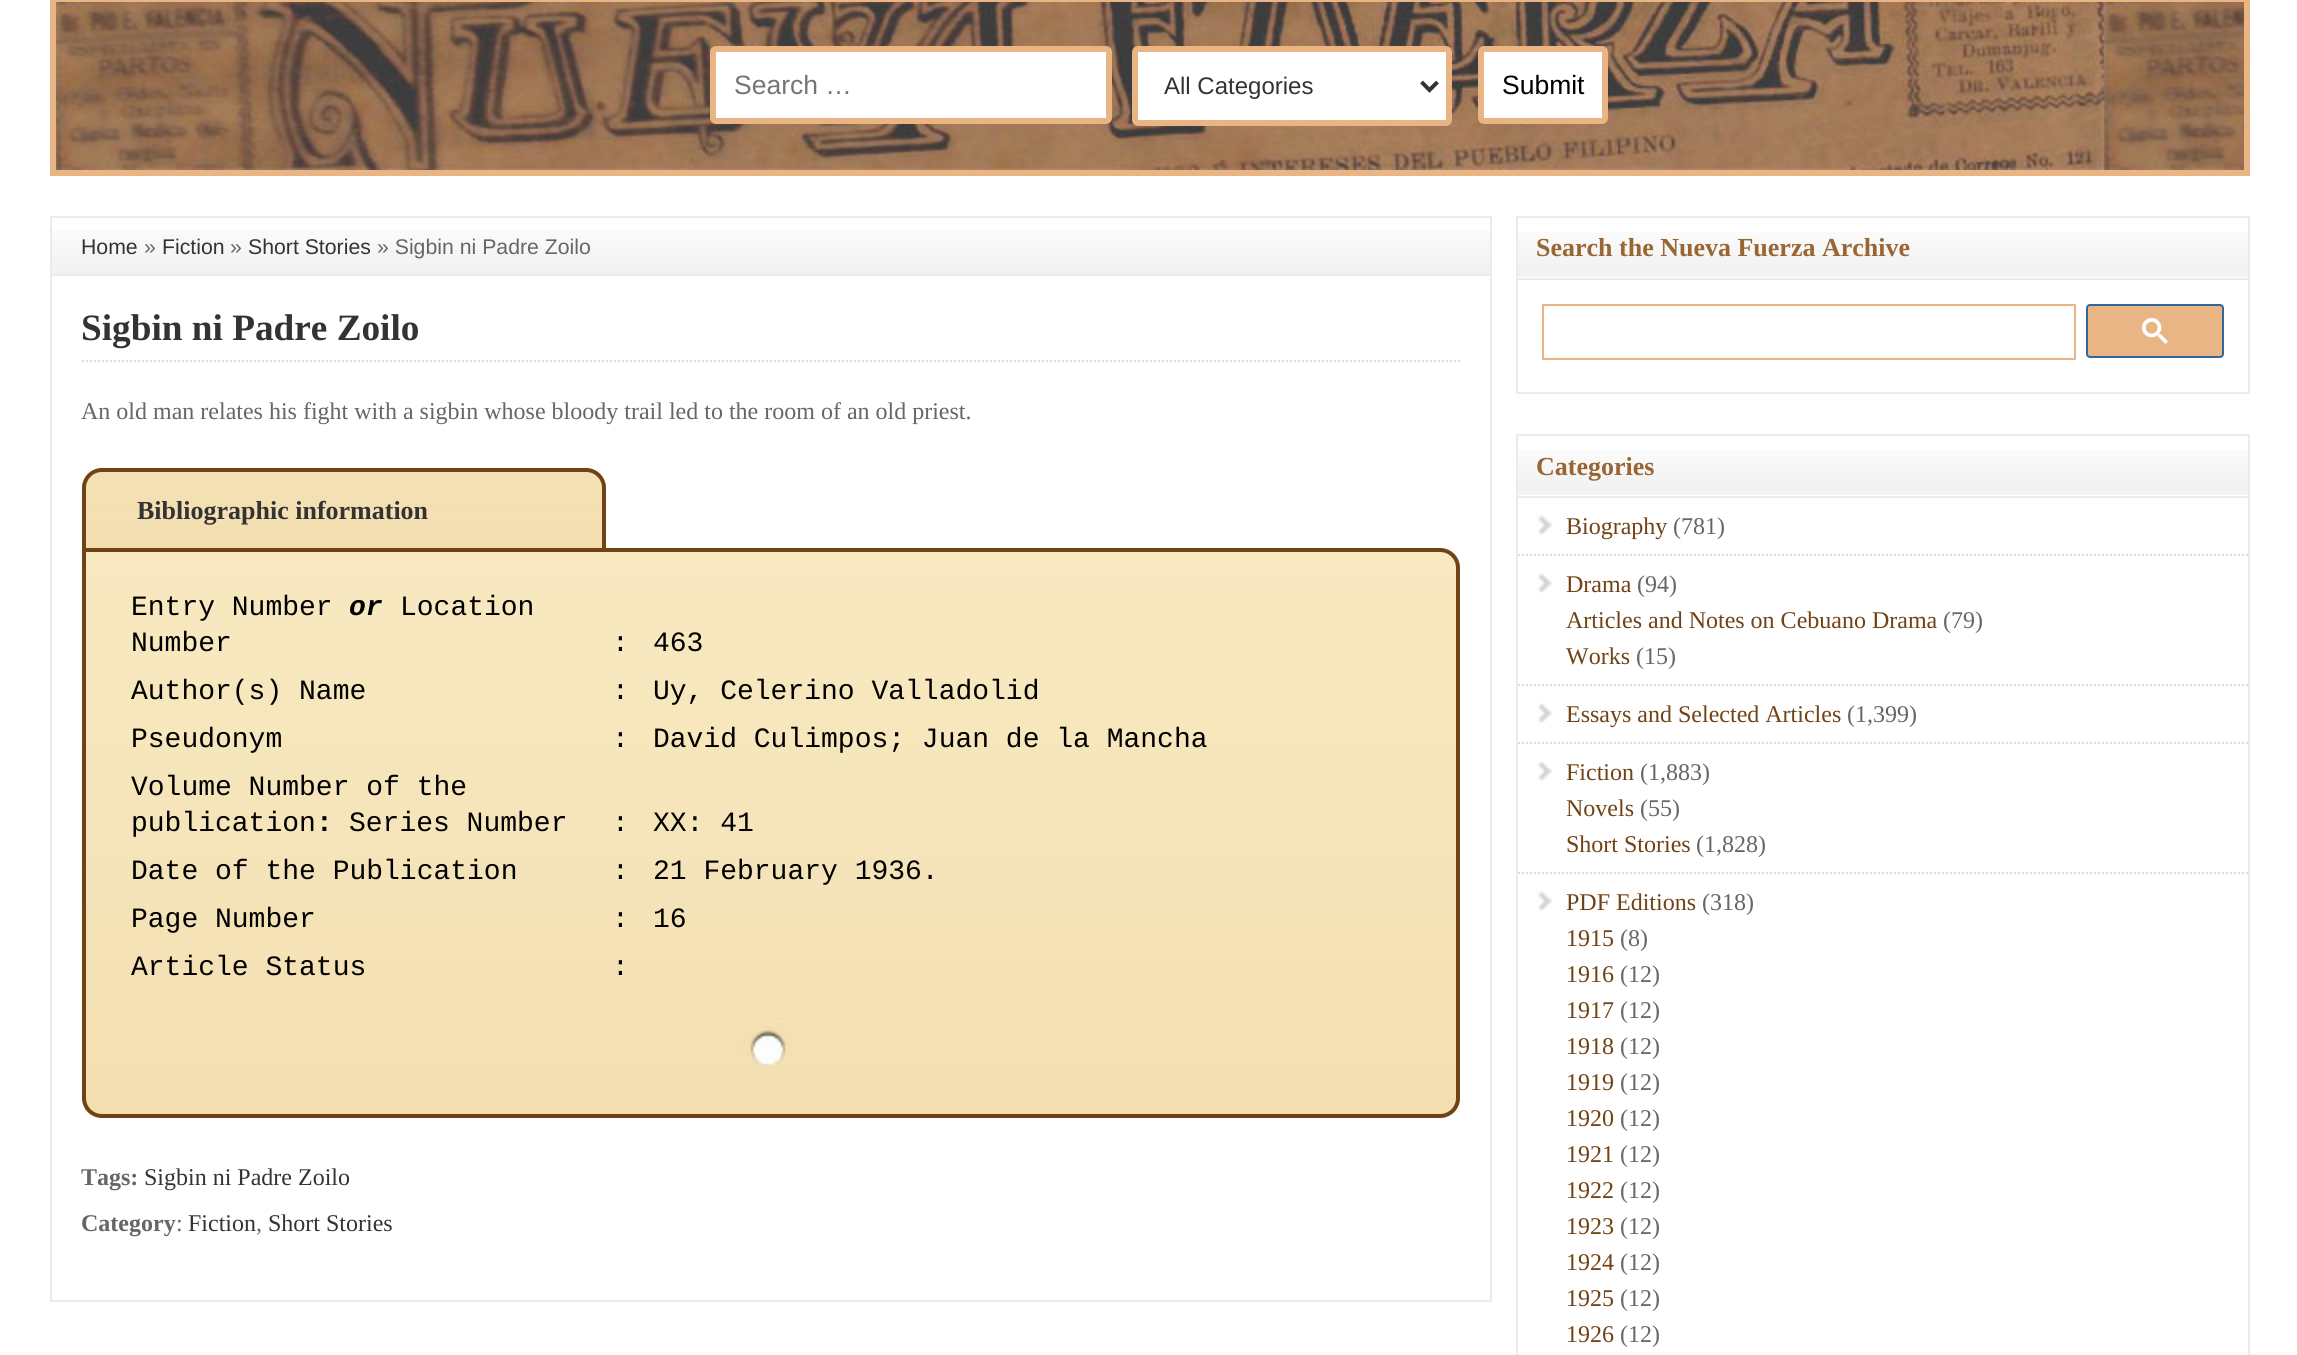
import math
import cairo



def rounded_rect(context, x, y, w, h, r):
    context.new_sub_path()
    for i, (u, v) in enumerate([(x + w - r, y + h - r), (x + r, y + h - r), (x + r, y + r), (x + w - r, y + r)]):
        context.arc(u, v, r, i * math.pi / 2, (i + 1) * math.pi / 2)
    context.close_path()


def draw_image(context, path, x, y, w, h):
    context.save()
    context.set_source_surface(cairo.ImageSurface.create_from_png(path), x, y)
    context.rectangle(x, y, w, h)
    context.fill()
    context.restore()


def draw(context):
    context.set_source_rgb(1, 1, 1)
    context.paint()
    draw_image(context, "images/1.png", 56, 2, 2188, 168)
    context.rectangle(53, -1, 2194, 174)
    context.set_source_rgb(233 / 255, 181 / 255, 132 / 255)
    context.set_line_width(6)
    context.stroke()
    context.set_source_rgb(1, 1, 1)
    rounded_rect(context, 713, 49, 396, 72, 3)
    context.fill_preserve()
    context.set_source_rgb(233 / 255, 181 / 255, 132 / 255)
    context.stroke()
    context.set_source_rgb(1, 1, 1)
    rounded_rect(context, 1135, 49, 314, 74, 3)
    context.fill_preserve()
    context.set_source_rgb(233 / 255, 181 / 255, 132 / 255)
    context.stroke()
    context.new_path()
    context.move_to(1421.5, 82)
    context.line_to(1429.5, 90)
    context.line_to(1437.5, 82)
    context.set_source_rgb(51 / 255, 51 / 255, 51 / 255)
    context.set_line_width(4)
    context.stroke()
    context.set_source_rgb(1, 1, 1)
    rounded_rect(context, 1481, 49, 124, 72, 3)
    context.fill_preserve()
    context.set_source_rgb(233 / 255, 181 / 255, 132 / 255)
    context.set_line_width(6)
    context.stroke()
    draw_image(context, "images/2.png", 52, 230, 1438, 44)
    context.set_source_rgb(235 / 255, 235 / 255, 235 / 255)
    context.rectangle(50, 216, 1442, 2)
    context.fill()
    context.rectangle(1490, 216, 2, 58)
    context.fill()
    context.rectangle(50, 216, 2, 58)
    context.fill()
    context.rectangle(51, 275, 1440, 1026)
    context.set_line_width(2)
    context.stroke()
    context.new_path()
    context.move_to(82, 361)
    context.line_to(1460, 361)
    context.set_source_rgb(221 / 255, 221 / 255, 221 / 255)
    context.set_dash([2, 2])
    context.stroke()
    draw_image(context, "images/3.png", 82, 468, 524, 80)
    context.set_source_rgb(112 / 255, 66 / 255, 20 / 255)
    context.set_fill_rule(cairo.FillRule.EVEN_ODD)
    context.new_path()
    context.move_to(102, 468)
    context.line_to(586, 468)
    context.curve_to(597, 468, 606, 477, 606, 488)
    context.line_to(606, 548)
    context.line_to(82, 548)
    context.line_to(82, 488)
    context.curve_to(82, 477, 91, 468, 102, 468)
    context.close_path()
    context.move_to(102, 472)
    context.line_to(586, 472)
    context.curve_to(595, 472, 602, 479, 602, 488)
    context.line_to(602, 548)
    context.line_to(86, 548)
    context.line_to(86, 488)
    context.curve_to(86, 479, 93, 472, 102, 472)
    context.close_path()
    context.fill()
    draw_image(context, "images/4.png", 82, 548, 1378, 566)
    context.new_path()
    context.move_to(84, 550)
    context.line_to(1440, 550)
    context.curve_to(1450, 550, 1458, 558, 1458, 568)
    context.line_to(1458, 1098)
    context.curve_to(1458, 1108, 1450, 1116, 1440, 1116)
    context.line_to(102, 1116)
    context.curve_to(92, 1116, 84, 1108, 84, 1098)
    context.close_path()
    context.set_line_width(4)
    context.set_dash([])
    context.stroke()
    context.rectangle(1517, 217, 732, 176)
    context.set_source_rgb(235 / 255, 235 / 255, 235 / 255)
    context.set_line_width(2)
    context.stroke()
    draw_image(context, "images/5.png", 1518, 232, 730, 45)
    context.rectangle(1518, 278, 730, 2)
    context.fill()
    context.rectangle(1543, 305, 532, 54)
    context.set_source_rgb(233 / 255, 181 / 255, 132 / 255)
    context.stroke()
    rounded_rect(context, 2087, 305, 136, 52, 3)
    context.fill_preserve()
    context.set_source_rgb(51 / 255, 102 / 255, 153 / 255)
    context.stroke()
    draw_image(context, "images/6.png", 2142, 318, 26, 26)
    context.rectangle(1517, 435, 732, 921)
    context.set_source_rgb(235 / 255, 235 / 255, 235 / 255)
    context.stroke()
    draw_image(context, "images/5.png", 1518, 450, 730, 45)
    context.rectangle(1518, 496, 730, 2)
    context.fill()
    draw_image(context, "images/7.png", 1537, 515, 16, 20)
    context.new_path()
    context.move_to(1518, 555)
    context.line_to(2248, 555)
    context.set_source_rgb(221 / 255, 221 / 255, 221 / 255)
    context.set_dash([2, 2])
    context.stroke()
    draw_image(context, "images/7.png", 1537, 573, 16, 20)
    context.new_path()
    context.move_to(1518, 685)
    context.line_to(2248, 685)
    context.stroke()
    draw_image(context, "images/7.png", 1537, 703, 16, 20)
    context.new_path()
    context.move_to(1518, 743)
    context.line_to(2248, 743)
    context.stroke()
    draw_image(context, "images/7.png", 1537, 761, 16, 20)
    context.new_path()
    context.move_to(1518, 873)
    context.line_to(2248, 873)
    context.stroke()
    draw_image(context, "images/7.png", 1537, 891, 16, 20)
    context.select_font_face("Liberation Sans")
    context.set_font_size(26.5)
    context.set_source_rgb(117 / 255, 117 / 255, 117 / 255)
    context.move_to(734, 94)
    context.show_text("Search …")
    context.set_font_size(24)
    context.set_source_rgb(51 / 255, 51 / 255, 51 / 255)
    context.move_to(1164, 94)
    context.show_text("All Categories")
    context.set_font_size(26.5)
    context.set_source_rgb(0, 0, 0)
    context.move_to(1502, 94)
    context.show_text("Submit")
    context.set_font_size(21.25)
    context.set_source_rgb(51 / 255, 51 / 255, 51 / 255)
    context.move_to(81, 254)
    context.show_text("Home")
    context.set_source_rgb(102 / 255, 102 / 255, 102 / 255)
    context.move_to(144, 254)
    context.show_text("»")
    context.set_source_rgb(51 / 255, 51 / 255, 51 / 255)
    context.move_to(162, 254)
    context.show_text("Fiction")
    context.set_source_rgb(102 / 255, 102 / 255, 102 / 255)
    context.move_to(230, 254)
    context.show_text("»")
    context.set_source_rgb(51 / 255, 51 / 255, 51 / 255)
    context.move_to(248, 254)
    context.show_text("Short Stories")
    context.set_source_rgb(102 / 255, 102 / 255, 102 / 255)
    context.move_to(377, 254)
    context.show_text("» Sigbin ni Padre Zoilo")
    context.select_font_face("Liberation Serif", cairo.FontSlant.NORMAL, cairo.FontWeight.BOLD)
    context.set_font_size(37.25)
    context.set_source_rgb(51 / 255, 51 / 255, 51 / 255)
    context.move_to(81, 340)
    context.show_text("Sigbin ni Padre Zoilo")
    context.select_font_face("Liberation Serif")
    context.set_font_size(24)
    context.set_source_rgb(102 / 255, 102 / 255, 102 / 255)
    context.move_to(81, 419)
    context.show_text("An old man relates his fight with a sigbin whose bloody trail led to the room of an old priest.")
    context.select_font_face("Liberation Serif", cairo.FontSlant.NORMAL, cairo.FontWeight.BOLD)
    context.set_font_size(26)
    context.set_source_rgb(51 / 255, 51 / 255, 51 / 255)
    context.move_to(137, 519)
    context.show_text("Bibliographic information")
    context.select_font_face("Liberation Mono")
    context.set_font_size(28)
    context.set_source_rgb(0, 0, 0)
    context.move_to(131, 615)
    context.show_text("Entry Number")
    context.select_font_face("Liberation Mono", cairo.FontSlant.ITALIC, cairo.FontWeight.BOLD)
    context.move_to(349, 615)
    context.show_text("or")
    context.select_font_face("Liberation Mono")
    context.move_to(400, 615)
    context.show_text("Location")
    context.move_to(131, 651)
    context.show_text("Number")
    context.move_to(612, 651)
    context.show_text(":")
    context.move_to(653, 651)
    context.show_text("463")
    context.move_to(131, 699)
    context.show_text("Author(s) Name")
    context.move_to(612, 699)
    context.show_text(":")
    context.move_to(653, 699)
    context.show_text("Uy, Celerino Valladolid")
    context.move_to(131, 747)
    context.show_text("Pseudonym")
    context.move_to(612, 747)
    context.show_text(":")
    context.move_to(653, 747)
    context.show_text("David Culimpos; Juan de la Mancha")
    context.move_to(131, 795)
    context.show_text("Volume Number of the")
    context.move_to(131, 831)
    context.show_text("publication")
    context.select_font_face("Liberation Mono", cairo.FontSlant.NORMAL, cairo.FontWeight.BOLD)
    context.move_to(316, 831)
    context.show_text(":")
    context.select_font_face("Liberation Mono")
    context.move_to(349, 831)
    context.show_text("Series Number")
    context.move_to(612, 831)
    context.show_text(":")
    context.move_to(653, 831)
    context.show_text("XX: 41")
    context.move_to(131, 879)
    context.show_text("Date of the Publication")
    context.move_to(612, 879)
    context.show_text(":")
    context.move_to(653, 879)
    context.show_text("21 February 1936.")
    context.move_to(131, 927)
    context.show_text("Page Number")
    context.move_to(612, 927)
    context.show_text(":")
    context.move_to(653, 927)
    context.show_text("16")
    context.move_to(131, 975)
    context.show_text("Article Status")
    context.move_to(612, 975)
    context.show_text(":")
    context.select_font_face("Liberation Serif", cairo.FontSlant.NORMAL, cairo.FontWeight.BOLD)
    context.set_font_size(24)
    context.set_source_rgb(102 / 255, 102 / 255, 102 / 255)
    context.move_to(81, 1185)
    context.show_text("Tags:")
    context.select_font_face("Liberation Serif")
    context.set_source_rgb(51 / 255, 51 / 255, 51 / 255)
    context.move_to(144, 1185)
    context.show_text("Sigbin ni Padre Zoilo")
    context.select_font_face("Liberation Serif", cairo.FontSlant.NORMAL, cairo.FontWeight.BOLD)
    context.set_source_rgb(102 / 255, 102 / 255, 102 / 255)
    context.move_to(81, 1231)
    context.show_text("Category")
    context.select_font_face("Liberation Serif")
    context.move_to(176, 1231)
    context.show_text(":")
    context.set_source_rgb(51 / 255, 51 / 255, 51 / 255)
    context.move_to(188, 1231)
    context.show_text("Fiction")
    context.set_source_rgb(102 / 255, 102 / 255, 102 / 255)
    context.move_to(256, 1231)
    context.show_text(",")
    context.set_source_rgb(51 / 255, 51 / 255, 51 / 255)
    context.move_to(268, 1231)
    context.show_text("Short Stories")
    context.select_font_face("Liberation Serif", cairo.FontSlant.NORMAL, cairo.FontWeight.BOLD)
    context.set_font_size(26)
    context.set_source_rgb(153 / 255, 102 / 255, 51 / 255)
    context.move_to(1536, 256)
    context.show_text("Search the Nueva Fuerza Archive")
    context.move_to(1536, 475)
    context.show_text("Categories")
    context.select_font_face("Liberation Serif")
    context.set_font_size(24)
    context.set_source_rgb(112 / 255, 66 / 255, 20 / 255)
    context.move_to(1566, 534)
    context.show_text("Biography")
    context.set_source_rgb(102 / 255, 102 / 255, 102 / 255)
    context.move_to(1673, 534)
    context.show_text("(781)")
    context.set_source_rgb(112 / 255, 66 / 255, 20 / 255)
    context.move_to(1566, 592)
    context.show_text("Drama")
    context.set_source_rgb(102 / 255, 102 / 255, 102 / 255)
    context.move_to(1637, 592)
    context.show_text("(94)")
    context.set_source_rgb(112 / 255, 66 / 255, 20 / 255)
    context.move_to(1566, 628)
    context.show_text("Articles and Notes on Cebuano Drama")
    context.set_source_rgb(102 / 255, 102 / 255, 102 / 255)
    context.move_to(1943, 628)
    context.show_text("(79)")
    context.set_source_rgb(112 / 255, 66 / 255, 20 / 255)
    context.move_to(1566, 664)
    context.show_text("Works")
    context.set_source_rgb(102 / 255, 102 / 255, 102 / 255)
    context.move_to(1636, 664)
    context.show_text("(15)")
    context.set_source_rgb(112 / 255, 66 / 255, 20 / 255)
    context.move_to(1566, 722)
    context.show_text("Essays and Selected Articles")
    context.set_source_rgb(102 / 255, 102 / 255, 102 / 255)
    context.move_to(1847, 722)
    context.show_text("(1,399)")
    context.set_source_rgb(112 / 255, 66 / 255, 20 / 255)
    context.move_to(1566, 780)
    context.show_text("Fiction")
    context.set_source_rgb(102 / 255, 102 / 255, 102 / 255)
    context.move_to(1640, 780)
    context.show_text("(1,883)")
    context.set_source_rgb(112 / 255, 66 / 255, 20 / 255)
    context.move_to(1566, 816)
    context.show_text("Novels")
    context.set_source_rgb(102 / 255, 102 / 255, 102 / 255)
    context.move_to(1640, 816)
    context.show_text("(55)")
    context.set_source_rgb(112 / 255, 66 / 255, 20 / 255)
    context.move_to(1566, 852)
    context.show_text("Short Stories")
    context.set_source_rgb(102 / 255, 102 / 255, 102 / 255)
    context.move_to(1696, 852)
    context.show_text("(1,828)")
    context.set_source_rgb(112 / 255, 66 / 255, 20 / 255)
    context.move_to(1566, 910)
    context.show_text("PDF Editions")
    context.set_source_rgb(102 / 255, 102 / 255, 102 / 255)
    context.move_to(1702, 910)
    context.show_text("(318)")
    context.set_source_rgb(112 / 255, 66 / 255, 20 / 255)
    context.move_to(1566, 946)
    context.show_text("1915")
    context.set_source_rgb(102 / 255, 102 / 255, 102 / 255)
    context.move_to(1620, 946)
    context.show_text("(8)")
    context.set_source_rgb(112 / 255, 66 / 255, 20 / 255)
    context.move_to(1566, 982)
    context.show_text("1916")
    context.set_source_rgb(102 / 255, 102 / 255, 102 / 255)
    context.move_to(1620, 982)
    context.show_text("(12)")
    context.set_source_rgb(112 / 255, 66 / 255, 20 / 255)
    context.move_to(1566, 1018)
    context.show_text("1917")
    context.set_source_rgb(102 / 255, 102 / 255, 102 / 255)
    context.move_to(1620, 1018)
    context.show_text("(12)")
    context.set_source_rgb(112 / 255, 66 / 255, 20 / 255)
    context.move_to(1566, 1054)
    context.show_text("1918")
    context.set_source_rgb(102 / 255, 102 / 255, 102 / 255)
    context.move_to(1620, 1054)
    context.show_text("(12)")
    context.set_source_rgb(112 / 255, 66 / 255, 20 / 255)
    context.move_to(1566, 1090)
    context.show_text("1919")
    context.set_source_rgb(102 / 255, 102 / 255, 102 / 255)
    context.move_to(1620, 1090)
    context.show_text("(12)")
    context.set_source_rgb(112 / 255, 66 / 255, 20 / 255)
    context.move_to(1566, 1126)
    context.show_text("1920")
    context.set_source_rgb(102 / 255, 102 / 255, 102 / 255)
    context.move_to(1620, 1126)
    context.show_text("(12)")
    context.set_source_rgb(112 / 255, 66 / 255, 20 / 255)
    context.move_to(1566, 1162)
    context.show_text("1921")
    context.set_source_rgb(102 / 255, 102 / 255, 102 / 255)
    context.move_to(1620, 1162)
    context.show_text("(12)")
    context.set_source_rgb(112 / 255, 66 / 255, 20 / 255)
    context.move_to(1566, 1198)
    context.show_text("1922")
    context.set_source_rgb(102 / 255, 102 / 255, 102 / 255)
    context.move_to(1620, 1198)
    context.show_text("(12)")
    context.set_source_rgb(112 / 255, 66 / 255, 20 / 255)
    context.move_to(1566, 1234)
    context.show_text("1923")
    context.set_source_rgb(102 / 255, 102 / 255, 102 / 255)
    context.move_to(1620, 1234)
    context.show_text("(12)")
    context.set_source_rgb(112 / 255, 66 / 255, 20 / 255)
    context.move_to(1566, 1270)
    context.show_text("1924")
    context.set_source_rgb(102 / 255, 102 / 255, 102 / 255)
    context.move_to(1620, 1270)
    context.show_text("(12)")
    context.set_source_rgb(112 / 255, 66 / 255, 20 / 255)
    context.move_to(1566, 1306)
    context.show_text("1925")
    context.set_source_rgb(102 / 255, 102 / 255, 102 / 255)
    context.move_to(1620, 1306)
    context.show_text("(12)")
    context.set_source_rgb(112 / 255, 66 / 255, 20 / 255)
    context.move_to(1566, 1342)
    context.show_text("1926")
    context.set_source_rgb(102 / 255, 102 / 255, 102 / 255)
    context.move_to(1620, 1342)
    context.show_text("(12)")


surface = cairo.ImageSurface(cairo.Format.RGB24, 2297, 1355)
context = cairo.Context(surface)
options = cairo.FontOptions()
options.set_hint_metrics(cairo.HintMetrics.OFF)
options.set_hint_style(cairo.HintStyle.NONE)
context.set_font_options(options)
context.set_miter_limit(4)
draw(context)
surface.write_to_png("out.png")
